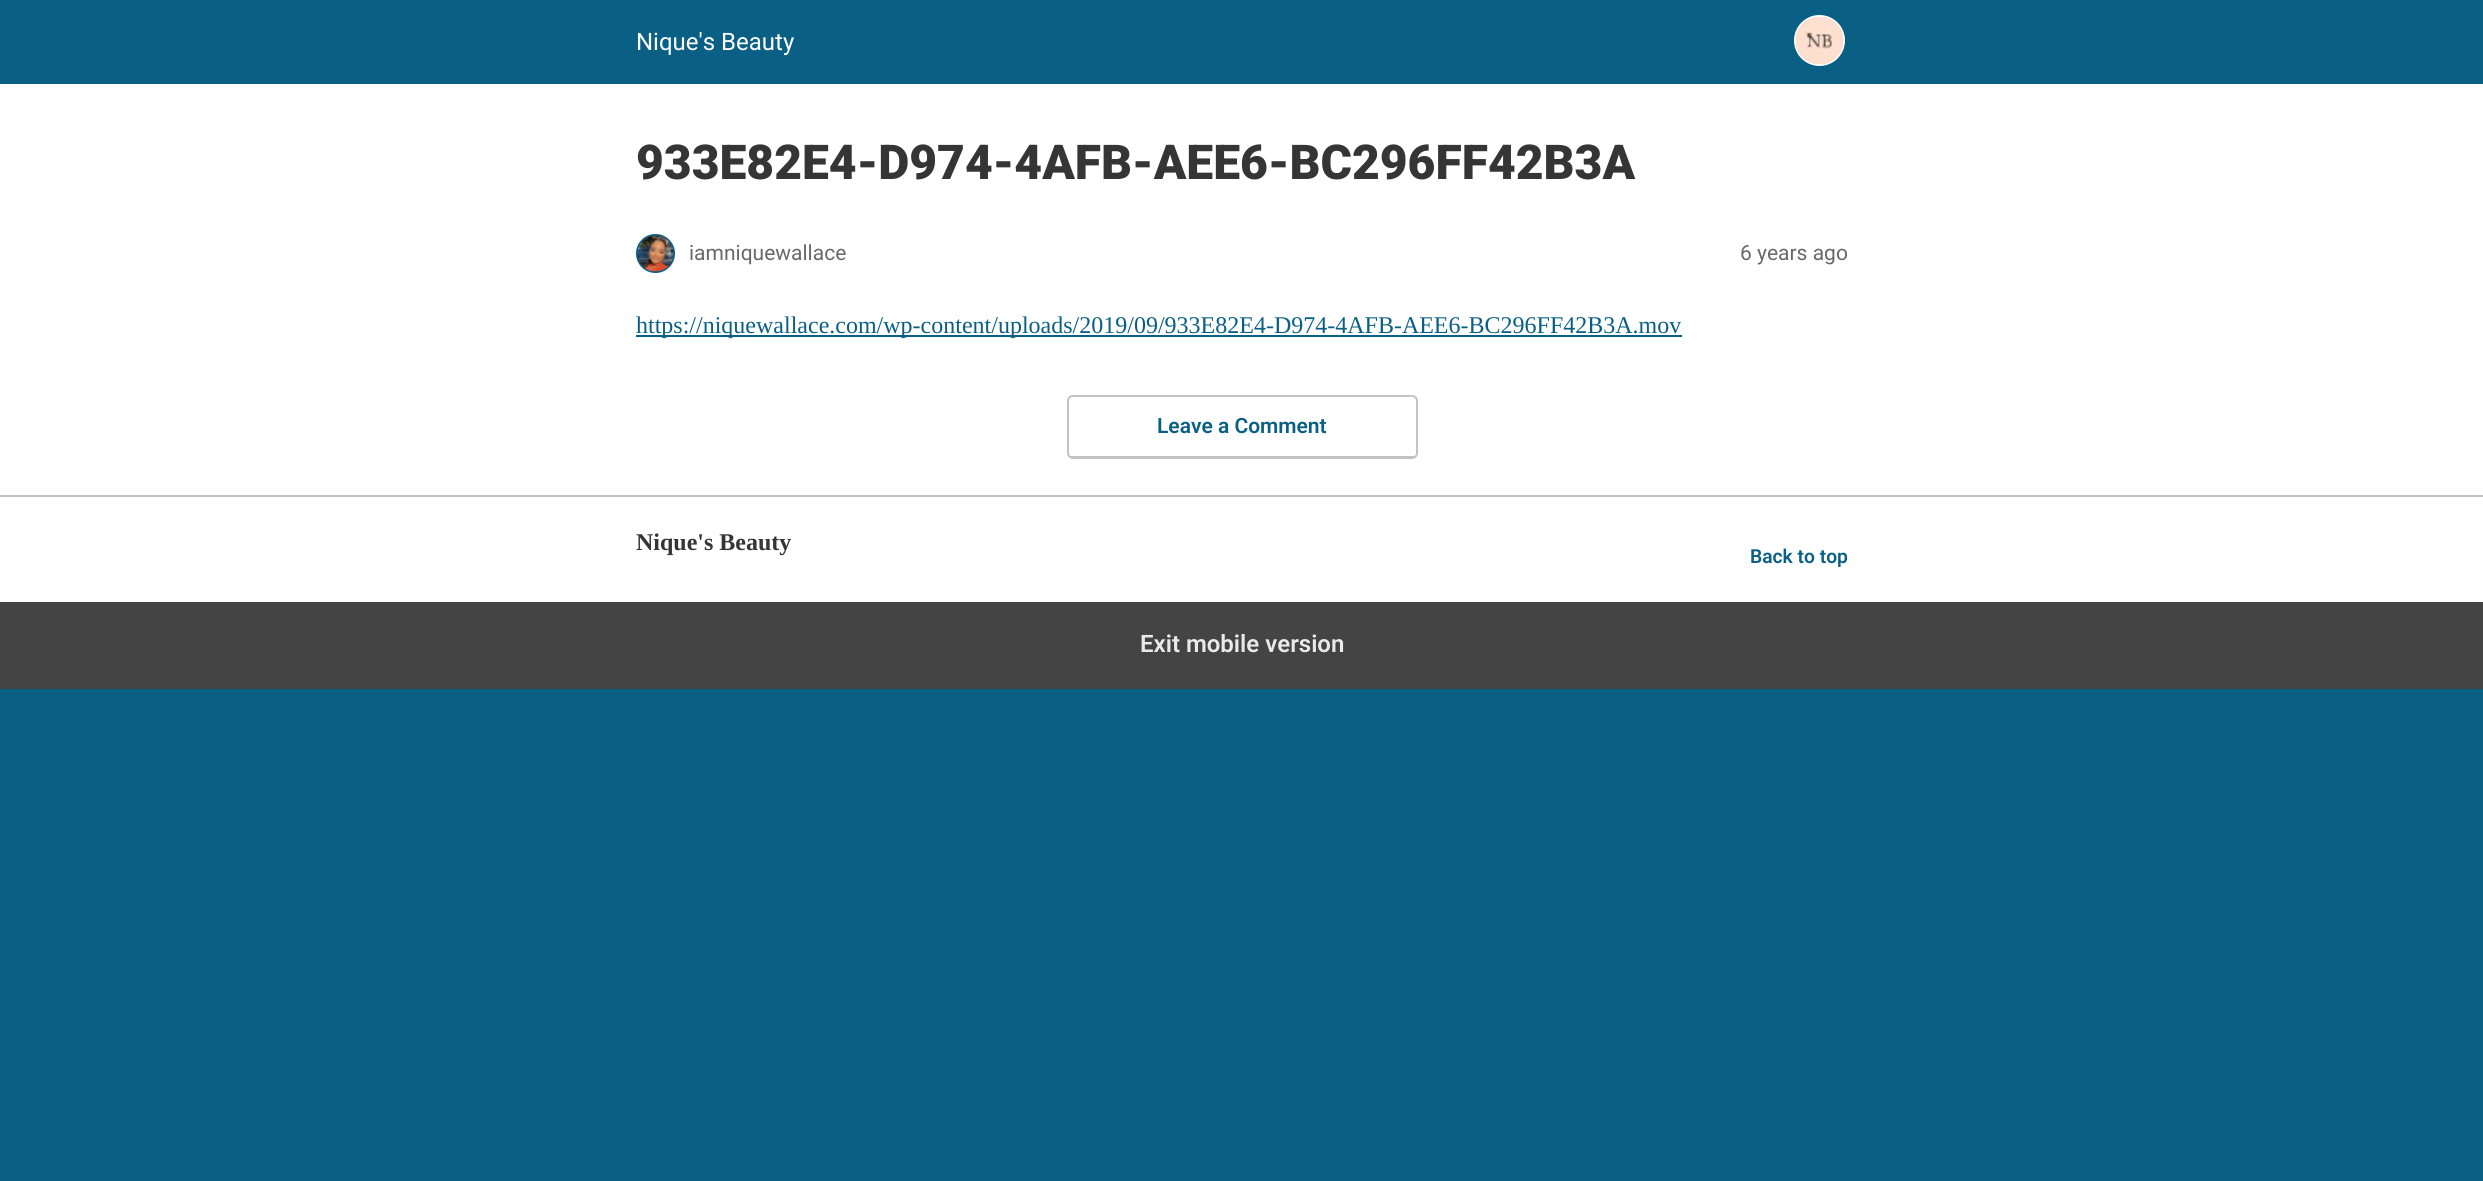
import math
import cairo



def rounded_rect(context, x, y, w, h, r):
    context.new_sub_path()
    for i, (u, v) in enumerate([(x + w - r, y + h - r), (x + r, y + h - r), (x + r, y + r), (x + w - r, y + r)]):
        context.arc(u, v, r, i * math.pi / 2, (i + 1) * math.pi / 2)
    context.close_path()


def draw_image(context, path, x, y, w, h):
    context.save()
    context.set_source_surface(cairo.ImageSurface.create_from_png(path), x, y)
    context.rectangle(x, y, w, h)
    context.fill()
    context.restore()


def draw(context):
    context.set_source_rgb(10 / 255, 95 / 255, 133 / 255)
    context.paint()
    context.set_source_rgb(1, 1, 1)
    context.rectangle(0, 84, 2483, 518)
    context.fill()
    context.arc(1819.5, 40.5, 24.5, 0, 2 * math.pi)
    context.stroke()
    draw_image(context, "images/1.png", 1795, 16, 49, 49)
    context.arc(655.5, 253.5, 18.5, 0, 2 * math.pi)
    context.set_source_rgb(10 / 255, 95 / 255, 133 / 255)
    context.stroke()
    draw_image(context, "images/2.png", 637, 235, 37, 37)
    context.rectangle(636, 335, 1046, 2)
    context.fill()
    rounded_rect(context, 1068, 396, 349, 62, 5)
    context.set_source_rgb(194 / 255, 194 / 255, 194 / 255)
    context.stroke()
    context.rectangle(1070, 456, 345, 1)
    context.fill()
    context.rectangle(0, 495, 2483, 2)
    context.fill()
    context.set_source_rgb(68 / 255, 68 / 255, 68 / 255)
    context.rectangle(0, 602, 2483, 87)
    context.fill()
    context.select_font_face("Roboto")
    context.set_font_size(24)
    context.set_source_rgb(1, 1, 1)
    context.move_to(636, 50)
    context.show_text("Nique's Beauty")
    context.select_font_face("Roboto Black")
    context.set_font_size(48)
    context.set_source_rgb(53 / 255, 53 / 255, 53 / 255)
    context.move_to(636, 179)
    context.show_text("933E82E4-D974-4AFB-AEE6-BC296FF42B3A")
    context.select_font_face("Roboto")
    context.set_font_size(21)
    context.set_source_rgb(105 / 255, 105 / 255, 105 / 255)
    context.move_to(689, 260)
    context.show_text("iamniquewallace")
    context.move_to(1740, 260)
    context.show_text("6 years ago")
    context.select_font_face("Liberation Serif")
    context.set_font_size(24)
    context.set_source_rgb(10 / 255, 95 / 255, 133 / 255)
    context.move_to(636, 333)
    context.show_text("https://niquewallace.com/wp-content/uploads/2019/09/933E82E4-D974-4AFB-AEE6-BC296FF42B3A.mov")
    context.select_font_face("Roboto SemiBold")
    context.set_font_size(21)
    context.move_to(1157, 433)
    context.show_text("Leave a Comment")
    context.select_font_face("Liberation Serif", cairo.FontSlant.NORMAL, cairo.FontWeight.BOLD)
    context.set_font_size(24)
    context.set_source_rgb(53 / 255, 53 / 255, 53 / 255)
    context.move_to(636, 550)
    context.show_text("Nique's Beauty")
    context.select_font_face("Roboto SemiBold")
    context.set_font_size(19.25)
    context.set_source_rgb(10 / 255, 95 / 255, 133 / 255)
    context.move_to(1750, 563)
    context.show_text("Back to top")
    context.set_font_size(24)
    context.set_source_rgb(234 / 255, 234 / 255, 234 / 255)
    context.move_to(1140, 652)
    context.show_text("Exit mobile version")


surface = cairo.ImageSurface(cairo.Format.RGB24, 2483, 1181)
context = cairo.Context(surface)
options = cairo.FontOptions()
options.set_hint_metrics(cairo.HintMetrics.OFF)
options.set_hint_style(cairo.HintStyle.NONE)
context.set_font_options(options)
context.set_miter_limit(4)
draw(context)
surface.write_to_png("out.png")
